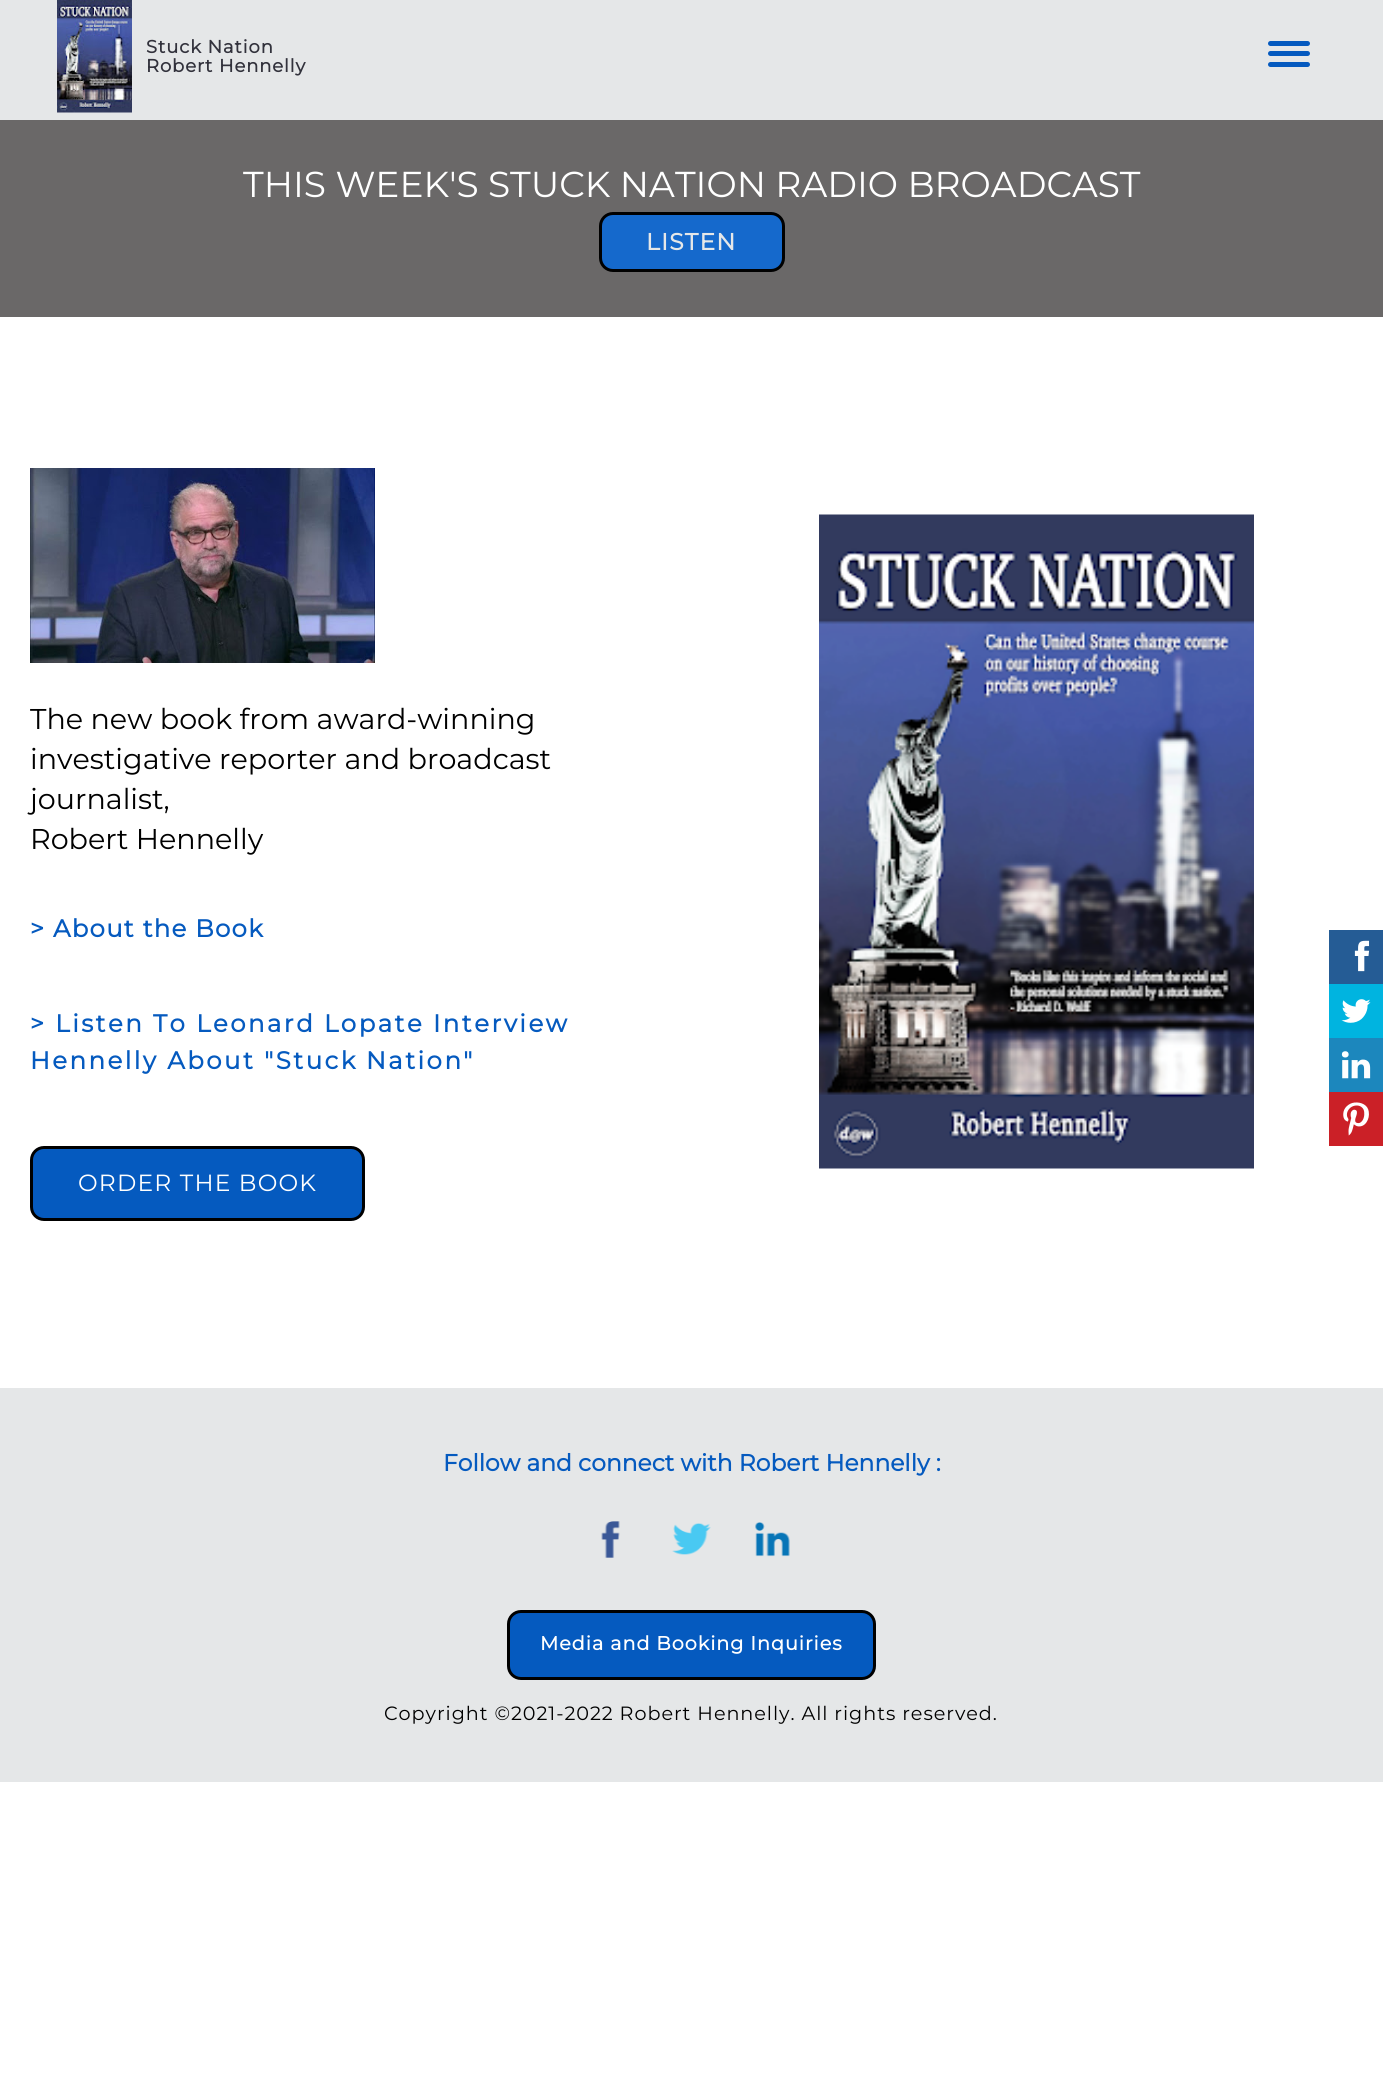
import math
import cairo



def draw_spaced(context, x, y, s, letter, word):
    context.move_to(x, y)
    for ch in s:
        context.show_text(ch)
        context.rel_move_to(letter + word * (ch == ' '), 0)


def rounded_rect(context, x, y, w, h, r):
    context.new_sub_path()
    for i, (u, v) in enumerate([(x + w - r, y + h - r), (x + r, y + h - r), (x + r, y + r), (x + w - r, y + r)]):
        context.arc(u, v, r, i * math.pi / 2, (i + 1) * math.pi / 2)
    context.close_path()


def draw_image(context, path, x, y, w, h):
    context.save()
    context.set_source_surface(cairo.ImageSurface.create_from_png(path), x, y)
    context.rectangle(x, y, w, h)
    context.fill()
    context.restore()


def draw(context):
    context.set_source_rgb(1, 1, 1)
    context.paint()
    context.set_source_rgb(229 / 255, 231 / 255, 232 / 255)
    context.rectangle(0, 0, 1383, 120)
    context.fill()
    draw_image(context, "images/1.png", 57, 0, 75, 113)
    context.set_source_rgb(5 / 255, 90 / 255, 191 / 255)
    rounded_rect(context, 1268, 51, 42, 5, 2.5)
    context.fill()
    rounded_rect(context, 1268, 41, 42, 5, 2.5)
    context.fill()
    rounded_rect(context, 1268, 62, 42, 5, 2.5)
    context.fill()
    context.set_source_rgb(106 / 255, 104 / 255, 104 / 255)
    context.rectangle(0, 120, 1383, 197)
    context.fill()
    context.set_source_rgb(21 / 255, 105 / 255, 204 / 255)
    rounded_rect(context, 600.5, 213.5, 183, 57, 12.5)
    context.fill_preserve()
    context.set_source_rgb(0, 0, 0)
    context.set_line_width(3)
    context.stroke()
    draw_image(context, "images/2.png", 30, 468, 345, 195)
    context.set_source_rgb(5 / 255, 90 / 255, 191 / 255)
    rounded_rect(context, 31.5, 1147.5, 332, 72, 12.5)
    context.fill_preserve()
    context.set_source_rgb(0, 0, 0)
    context.stroke()
    draw_image(context, "images/3.png", 819, 514, 435, 655)
    context.set_source_rgb(37 / 255, 92 / 255, 149 / 255)
    context.rectangle(1329, 930, 54, 54)
    context.fill()
    draw_image(context, "images/4.png", 1354, 940, 16, 32)
    context.set_source_rgb(0, 180 / 255, 224 / 255)
    context.rectangle(1329, 984, 54, 54)
    context.fill()
    draw_image(context, "images/5.png", 1341, 999, 30, 24)
    context.set_source_rgb(28 / 255, 135 / 255, 189 / 255)
    context.rectangle(1329, 1038, 54, 54)
    context.fill()
    draw_image(context, "images/6.png", 1341, 1051, 30, 28)
    context.set_source_rgb(203 / 255, 32 / 255, 39 / 255)
    context.rectangle(1329, 1092, 54, 54)
    context.fill()
    draw_image(context, "images/7.png", 1343, 1102, 26, 34)
    context.set_source_rgb(229 / 255, 231 / 255, 232 / 255)
    context.rectangle(0, 1388, 1383, 394)
    context.fill()
    draw_image(context, "images/8.png", 601, 1521, 19, 37)
    draw_image(context, "images/9.png", 672, 1523, 39, 32)
    draw_image(context, "images/10.png", 755, 1522, 35, 35)
    context.set_source_rgb(5 / 255, 90 / 255, 191 / 255)
    rounded_rect(context, 508.5, 1611.5, 366, 67, 12.5)
    context.fill_preserve()
    context.set_source_rgb(0, 0, 0)
    context.stroke()
    context.select_font_face("Montserrat", cairo.FontSlant.NORMAL, cairo.FontWeight.BOLD)
    context.set_font_size(18)
    context.set_source_rgb(50 / 255, 50 / 255, 60 / 255)
    draw_spaced(context, 146, 53, "Stuck Nation", 0.9, 0)
    draw_spaced(context, 146, 72, "Robert Hennelly", 0.9, 0)
    context.select_font_face("Montserrat Thin")
    context.set_font_size(36)
    context.set_source_rgb(1, 1, 1)
    context.move_to(243, 197)
    context.show_text("THIS WEEK'S STUCK NATION RADIO BROADCAST")
    context.select_font_face("Montserrat", cairo.FontSlant.NORMAL, cairo.FontWeight.BOLD)
    context.set_font_size(23.4)
    context.set_source_rgb(229 / 255, 231 / 255, 232 / 255)
    draw_spaced(context, 646, 250, "LISTEN", 1.2, 0)
    context.select_font_face("Montserrat Thin")
    context.set_font_size(28.6)
    context.set_source_rgb(0, 0, 0)
    context.move_to(30, 729)
    context.show_text("The new book from award-winning")
    context.move_to(30, 769)
    context.show_text("investigative reporter and broadcast")
    context.move_to(30, 809)
    context.show_text("journalist,")
    context.move_to(30, 849)
    context.show_text("Robert Hennelly")
    context.select_font_face("Montserrat", cairo.FontSlant.NORMAL, cairo.FontWeight.BOLD)
    context.set_font_size(24.45)
    context.set_source_rgb(5 / 255, 90 / 255, 191 / 255)
    draw_spaced(context, 30, 937, "> About the Book", 1.25, 0)
    draw_spaced(context, 30, 1032, "> Listen To Leonard Lopate Interview", 2.45, 0)
    draw_spaced(context, 30, 1069, "Hennelly About \"Stuck", 2.45, 0)
    draw_spaced(context, 366, 1069, "Nation\"", 2.45, 0)
    context.select_font_face("Montserrat Thin")
    context.set_font_size(23.4)
    context.set_source_rgb(1, 1, 1)
    draw_spaced(context, 78, 1191, "ORDER THE BOOK", 1.2, 0)
    context.select_font_face("Montserrat", cairo.FontSlant.NORMAL, cairo.FontWeight.BOLD)
    context.set_source_rgb(5 / 255, 90 / 255, 191 / 255)
    context.move_to(443, 1471)
    context.show_text("Follow and connect with Robert Hennelly :")
    context.set_font_size(19.2)
    context.set_source_rgb(1, 1, 1)
    draw_spaced(context, 540, 1650, "Media and Booking Inquiries", 0.95, 0)
    context.select_font_face("Montserrat Thin")
    context.set_source_rgb(0, 0, 0)
    draw_spaced(context, 384, 1720, "Copyright ©2021-2022 Robert Hennelly. All rights reserved.", 0.95, 0)


surface = cairo.ImageSurface(cairo.Format.RGB24, 1383, 2074)
context = cairo.Context(surface)
options = cairo.FontOptions()
options.set_hint_metrics(cairo.HintMetrics.OFF)
options.set_hint_style(cairo.HintStyle.NONE)
context.set_font_options(options)
context.set_miter_limit(4)
draw(context)
surface.write_to_png("out.png")
